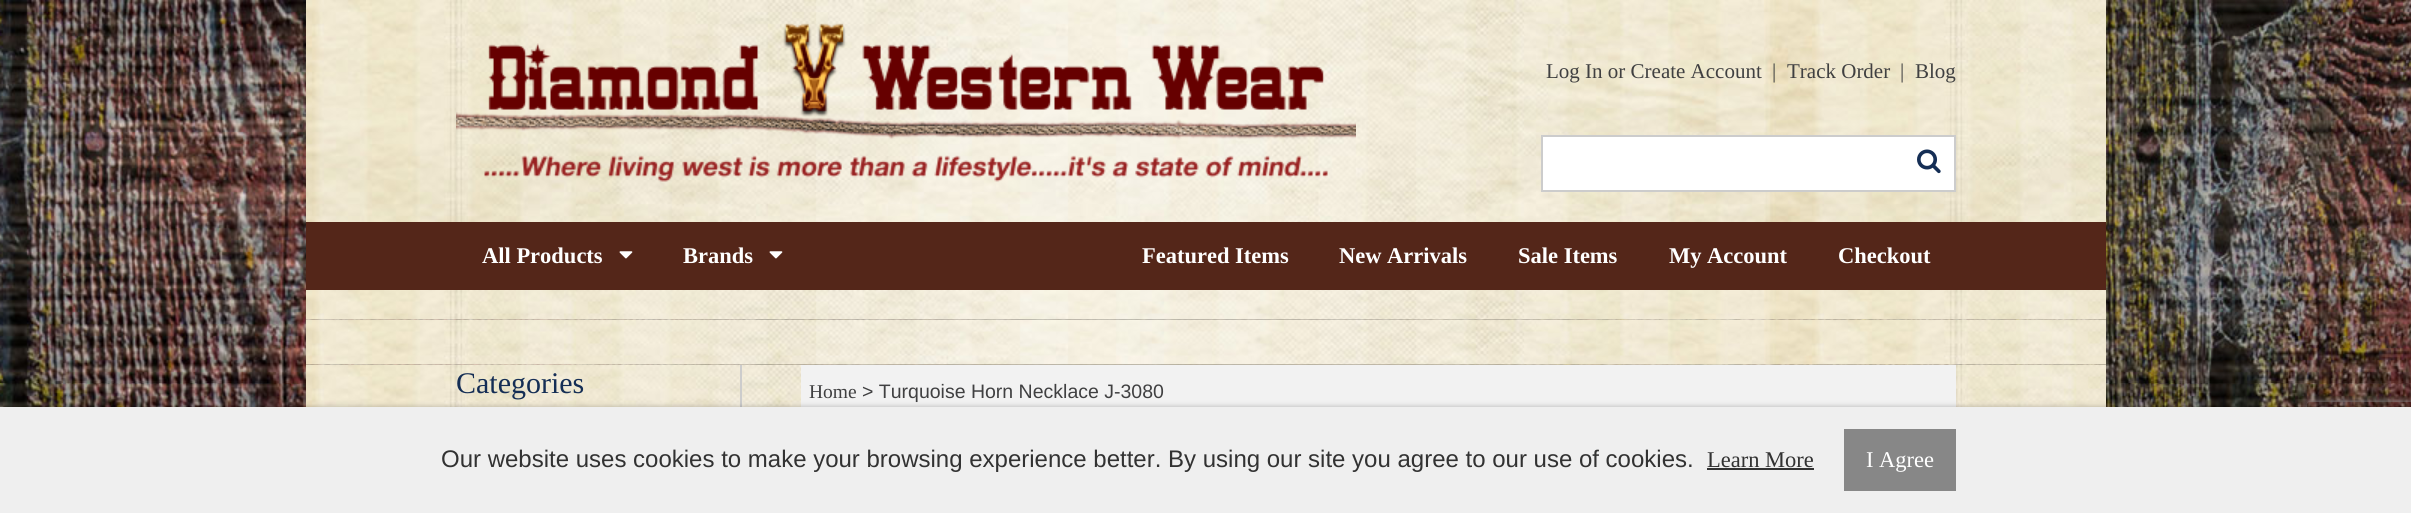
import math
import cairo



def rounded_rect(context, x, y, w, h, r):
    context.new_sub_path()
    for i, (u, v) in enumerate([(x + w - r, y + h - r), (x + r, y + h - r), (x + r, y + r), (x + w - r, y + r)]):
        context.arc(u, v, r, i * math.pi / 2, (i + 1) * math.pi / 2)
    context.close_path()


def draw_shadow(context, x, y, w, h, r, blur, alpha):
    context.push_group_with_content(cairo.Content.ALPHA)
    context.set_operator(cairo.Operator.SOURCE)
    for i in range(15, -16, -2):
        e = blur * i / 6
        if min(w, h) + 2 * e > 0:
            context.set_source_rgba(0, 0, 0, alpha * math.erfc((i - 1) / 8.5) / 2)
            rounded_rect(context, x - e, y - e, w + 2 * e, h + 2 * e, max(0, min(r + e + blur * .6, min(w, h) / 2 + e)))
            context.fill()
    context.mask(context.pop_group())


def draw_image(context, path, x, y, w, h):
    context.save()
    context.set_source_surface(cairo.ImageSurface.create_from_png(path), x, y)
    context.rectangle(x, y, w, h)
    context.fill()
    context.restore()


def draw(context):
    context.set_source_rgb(1, 1, 1)
    context.paint()
    draw_image(context, "images/1.png", 0, 0, 2411, 407)
    draw_image(context, "images/2.png", 306, 0, 1800, 222)
    draw_image(context, "images/3.png", 456, 23, 900, 159)
    context.set_source_rgb(1, 1, 1)
    context.rectangle(1542, 136, 413, 55)
    context.fill_preserve()
    context.set_source_rgb(204 / 255, 204 / 255, 204 / 255)
    context.stroke()
    draw_image(context, "images/4.png", 1917, 149, 24, 25)
    context.set_source_rgb(84 / 255, 38 / 255, 25 / 255)
    context.rectangle(306, 222, 1800, 68)
    context.fill()
    draw_image(context, "images/5.png", 619, 251, 14, 8)
    draw_image(context, "images/5.png", 769, 251, 14, 8)
    draw_image(context, "images/6.png", 306, 290, 1800, 30)
    draw_image(context, "images/8.png", 306, 319, 1800, 46)
    draw_image(context, "images/7.png", 306, 364, 1800, 43)
    context.set_source_rgb(204 / 255, 204 / 255, 204 / 255)
    context.rectangle(740, 365, 2, 42)
    context.fill()
    context.set_source_rgb(242 / 255, 242 / 255, 242 / 255)
    context.rectangle(801, 365, 1155, 42)
    context.fill()
    context.set_source_rgb(0, 0, 0)
    draw_shadow(context, 5, 410, 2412, 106, 0, 4, 0.6)
    context.save()
    context.set_fill_rule(cairo.FillRule.EVEN_ODD)
    context.new_path()
    context.move_to(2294, 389)
    context.line_to(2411, 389)
    context.line_to(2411, 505)
    context.line_to(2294, 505)
    context.close_path()
    context.move_to(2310, 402)
    context.line_to(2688, 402)
    context.curve_to(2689.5, 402, 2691, 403.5, 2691, 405)
    context.line_to(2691, 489)
    context.curve_to(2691, 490.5, 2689.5, 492, 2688, 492)
    context.line_to(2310, 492)
    context.curve_to(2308.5, 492, 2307, 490.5, 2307, 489)
    context.line_to(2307, 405)
    context.curve_to(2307, 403.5, 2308.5, 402, 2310, 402)
    context.close_path()
    context.clip()
    context.set_source_rgb(128 / 255, 128 / 255, 128 / 255)
    draw_shadow(context, 2307, 402, 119, 90, 3, 4, 1)
    context.restore()
    context.set_source_rgb(239 / 255, 239 / 255, 239 / 255)
    context.rectangle(0, 407, 2411, 106)
    context.fill()
    context.set_source_rgb(50 / 255, 50 / 255, 50 / 255)
    context.rectangle(1707, 468, 107, 2)
    context.fill()
    context.set_source_rgb(135 / 255, 135 / 255, 135 / 255)
    context.rectangle(1844, 429, 112, 62)
    context.fill()
    context.select_font_face("Liberation Serif")
    context.set_font_size(21)
    context.set_source_rgb(64 / 255, 64 / 255, 65 / 255)
    context.move_to(1546, 78)
    context.show_text("Log In or Create Account")
    context.move_to(1772, 78)
    context.show_text("|")
    context.move_to(1787, 78)
    context.show_text("Track Order")
    context.move_to(1900, 78)
    context.show_text("|")
    context.move_to(1915, 78)
    context.show_text("Blog")
    context.select_font_face("Liberation Serif", cairo.FontSlant.NORMAL, cairo.FontWeight.BOLD)
    context.set_font_size(22.5)
    context.set_source_rgb(1, 1, 1)
    context.move_to(482, 263)
    context.show_text("All Products")
    context.move_to(683, 263)
    context.show_text("Brands")
    context.move_to(1142, 263)
    context.show_text("Featured Items")
    context.move_to(1339, 263)
    context.show_text("New Arrivals")
    context.move_to(1518, 263)
    context.show_text("Sale Items")
    context.move_to(1669, 263)
    context.show_text("My Account")
    context.move_to(1838, 263)
    context.show_text("Checkout")
    context.select_font_face("Liberation Serif")
    context.set_font_size(30)
    context.set_source_rgb(21 / 255, 46 / 255, 85 / 255)
    context.move_to(456, 393)
    context.show_text("Categories")
    context.set_font_size(19.5)
    context.set_source_rgb(64 / 255, 64 / 255, 65 / 255)
    context.move_to(809, 398)
    context.show_text("Home")
    context.select_font_face("Liberation Sans")
    context.move_to(862, 398)
    context.show_text("> Turquoise Horn Necklace J-3080")
    context.set_font_size(24)
    context.set_source_rgb(50 / 255, 50 / 255, 50 / 255)
    context.move_to(441, 467)
    context.show_text("Our website uses cookies to make your browsing experience better. By using our site you agree to our use of cookies.")
    context.select_font_face("Liberation Serif")
    context.set_font_size(22.5)
    context.move_to(1707, 467)
    context.show_text("Learn More")
    context.set_source_rgb(1, 1, 1)
    context.move_to(1866, 467)
    context.show_text("I Agree")


surface = cairo.ImageSurface(cairo.Format.RGB24, 2411, 513)
context = cairo.Context(surface)
options = cairo.FontOptions()
options.set_hint_metrics(cairo.HintMetrics.OFF)
options.set_hint_style(cairo.HintStyle.NONE)
context.set_font_options(options)
context.set_miter_limit(4)
draw(context)
surface.write_to_png("out.png")
